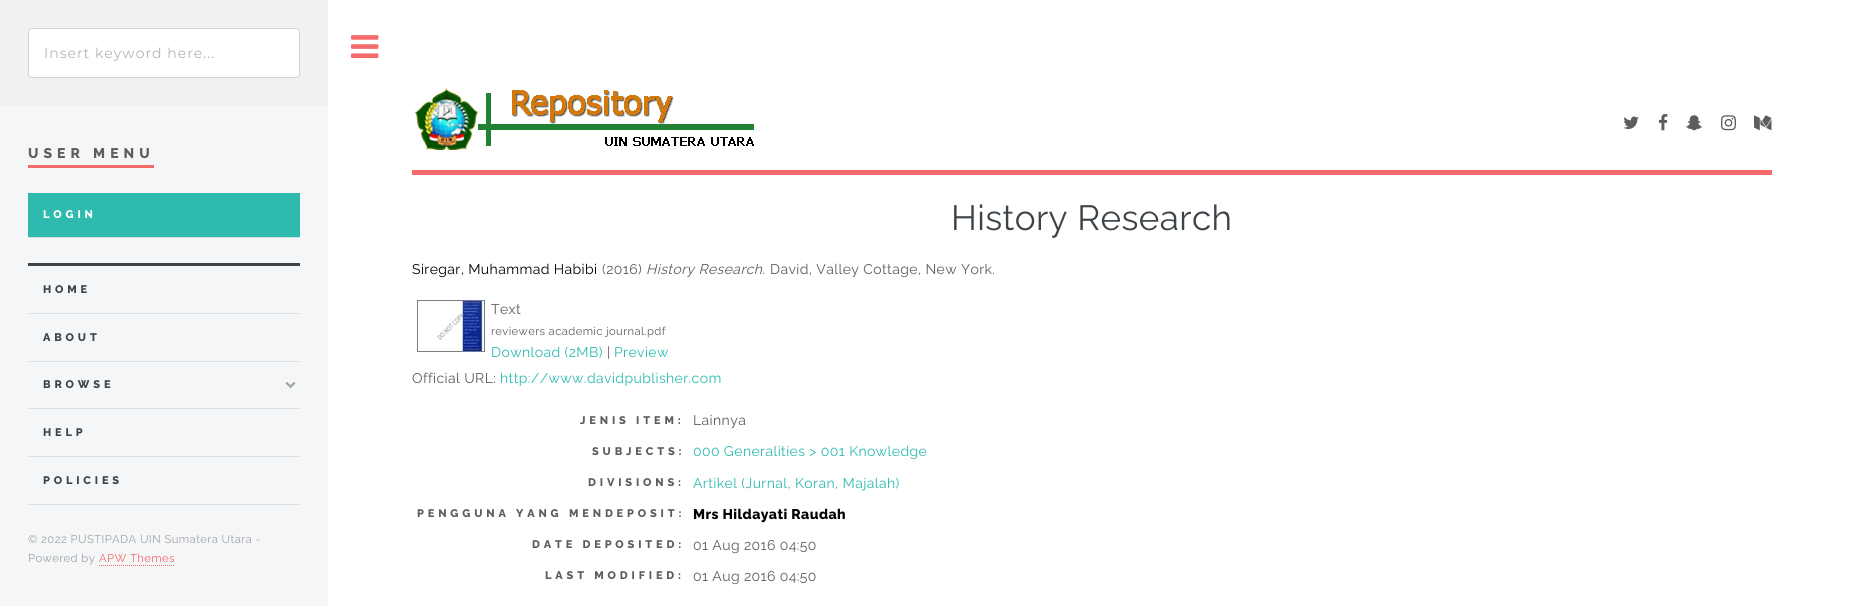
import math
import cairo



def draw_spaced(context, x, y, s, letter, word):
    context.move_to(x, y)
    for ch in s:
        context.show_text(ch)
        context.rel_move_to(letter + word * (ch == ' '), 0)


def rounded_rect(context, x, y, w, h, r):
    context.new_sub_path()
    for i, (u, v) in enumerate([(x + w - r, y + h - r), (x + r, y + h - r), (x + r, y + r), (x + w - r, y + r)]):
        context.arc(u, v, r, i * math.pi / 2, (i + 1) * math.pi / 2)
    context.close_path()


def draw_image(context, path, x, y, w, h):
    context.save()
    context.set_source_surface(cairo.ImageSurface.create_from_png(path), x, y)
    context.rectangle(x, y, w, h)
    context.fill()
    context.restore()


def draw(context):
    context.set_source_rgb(1, 1, 1)
    context.paint()
    context.set_source_rgb(245 / 255, 246 / 255, 247 / 255)
    context.rectangle(0, 106, 328, 500)
    context.fill()
    context.set_source_rgb(239 / 255, 241 / 255, 242 / 255)
    context.rectangle(0, 0, 328, 106)
    context.fill()
    context.set_source_rgb(1, 1, 1)
    rounded_rect(context, 28.5, 28.5, 271, 49, 3.5)
    context.fill_preserve()
    context.set_source_rgb(210 / 255, 210 / 255, 210 / 255)
    context.set_line_width(1)
    context.stroke()
    context.set_source_rgb(245 / 255, 106 / 255, 106 / 255)
    context.rectangle(28, 165, 126, 3)
    context.fill()
    context.set_source_rgb(46 / 255, 186 / 255, 174 / 255)
    context.rectangle(28, 193, 272, 44)
    context.fill()
    context.set_source_rgb(219 / 255, 223 / 255, 225 / 255)
    context.rectangle(28, 237, 272, 1)
    context.fill()
    context.set_source_rgb(61 / 255, 68 / 255, 73 / 255)
    context.rectangle(28, 263, 272, 3)
    context.fill()
    context.set_source_rgb(219 / 255, 223 / 255, 225 / 255)
    context.rectangle(28, 313, 272, 1)
    context.fill()
    context.rectangle(28, 361, 272, 1)
    context.fill()
    draw_image(context, "images/1.png", 285, 382, 11, 7)
    context.rectangle(28, 408, 272, 1)
    context.fill()
    context.rectangle(28, 456, 272, 1)
    context.fill()
    context.rectangle(28, 504, 272, 1)
    context.fill()
    context.new_path()
    context.move_to(99, 565.5)
    context.line_to(175, 565.5)
    context.set_source_rgb(245 / 255, 106 / 255, 106 / 255)
    context.set_dash([1, 1])
    context.stroke()
    draw_image(context, "images/2.png", 351, 35, 28, 23)
    context.rectangle(412, 170, 1360, 5)
    context.fill()
    draw_image(context, "images/3.png", 414, 88, 340, 62)
    draw_image(context, "images/4.png", 1623, 116, 16, 13)
    draw_image(context, "images/5.png", 1658, 114, 10, 17)
    draw_image(context, "images/6.png", 1686, 115, 17, 16)
    draw_image(context, "images/7.png", 1721, 115, 15, 16)
    draw_image(context, "images/8.png", 1754, 115, 18, 16)
    draw_image(context, "images/9.png", 417, 300, 68, 52)
    context.select_font_face("Montserrat")
    context.set_font_size(14)
    context.set_source_rgb(181 / 255, 181 / 255, 181 / 255)
    draw_spaced(context, 44, 58, "Insert keyword here...", 1, 0)
    context.select_font_face("Raleway ExtraBold")
    context.set_source_rgb(93 / 255, 93 / 255, 93 / 255)
    draw_spaced(context, 28, 158, "USER MENU", 5, 0)
    context.set_font_size(11)
    context.set_source_rgb(1, 1, 1)
    draw_spaced(context, 43, 218, "LOGIN", 3.85, 0)
    context.set_source_rgb(61 / 255, 68 / 255, 73 / 255)
    draw_spaced(context, 43, 293, "HOME", 3.85, 0)
    draw_spaced(context, 43, 341, "ABOUT", 3.85, 0)
    draw_spaced(context, 43, 388, "BROWSE", 3.85, 0)
    draw_spaced(context, 43, 436, "HELP", 3.85, 0)
    draw_spaced(context, 43, 484, "POLICIES", 3.85, 0)
    context.select_font_face("Raleway")
    context.set_font_size(11.3)
    context.set_source_rgb(159 / 255, 163 / 255, 166 / 255)
    draw_spaced(context, 28, 543, "© 2022 PUSTIPADA UIN Sumatera Utara -", 0.4, 0)
    draw_spaced(context, 28, 562, "Powered by", 0.4, 0)
    context.set_source_rgb(245 / 255, 106 / 255, 106 / 255)
    draw_spaced(context, 99, 562, "APW Themes", 0.4, 0)
    context.set_font_size(35)
    context.set_source_rgb(61 / 255, 68 / 255, 73 / 255)
    draw_spaced(context, 951, 230, "History Research", 0.4, 0)
    context.set_font_size(14)
    context.set_source_rgb(0, 0, 0)
    draw_spaced(context, 412, 274, "Siregar, Muhammad Habibi", 0.4, 0)
    context.set_source_rgb(93 / 255, 93 / 255, 93 / 255)
    draw_spaced(context, 602, 274, "(2016)", 0.4, 0)
    context.select_font_face("Raleway", cairo.FontSlant.ITALIC)
    draw_spaced(context, 646, 274, "History Research.", 0.4, 0)
    context.select_font_face("Raleway")
    draw_spaced(context, 770, 274, "David, Valley Cottage, New York.", 0.4, 0)
    draw_spaced(context, 491, 314, "Text", 0.4, 0)
    context.set_font_size(11.25)
    draw_spaced(context, 491, 335, "reviewers academic journal.pdf", 0.4, 0)
    context.set_font_size(14)
    context.set_source_rgb(46 / 255, 186 / 255, 174 / 255)
    draw_spaced(context, 491, 357, "Download (2MB)", 0.4, 0)
    context.set_source_rgb(93 / 255, 93 / 255, 93 / 255)
    draw_spaced(context, 607, 357, "|", 0.4, 0)
    context.set_source_rgb(46 / 255, 186 / 255, 174 / 255)
    draw_spaced(context, 614, 357, "Preview", 0.4, 0)
    context.set_source_rgb(93 / 255, 93 / 255, 93 / 255)
    draw_spaced(context, 412, 383, "Official URL:", 0.4, 0)
    context.set_source_rgb(46 / 255, 186 / 255, 174 / 255)
    draw_spaced(context, 500, 383, "http://www.davidpublisher.com", 0.4, 0)
    context.select_font_face("Raleway ExtraBold")
    context.set_font_size(11)
    context.set_source_rgb(93 / 255, 93 / 255, 93 / 255)
    draw_spaced(context, 580, 424, "JENIS ITEM:", 3.85, 0)
    context.select_font_face("Raleway")
    context.set_font_size(14)
    draw_spaced(context, 693, 425, "Lainnya", 0.4, 0)
    context.select_font_face("Raleway ExtraBold")
    context.set_font_size(11)
    draw_spaced(context, 592, 455, "SUBJECTS:", 3.85, 0)
    context.select_font_face("Raleway")
    context.set_font_size(14)
    context.set_source_rgb(46 / 255, 186 / 255, 174 / 255)
    draw_spaced(context, 693, 456, "000 Generalities > 001 Knowledge", 0.4, 0)
    context.select_font_face("Raleway ExtraBold")
    context.set_font_size(11)
    context.set_source_rgb(93 / 255, 93 / 255, 93 / 255)
    draw_spaced(context, 588, 486, "DIVISIONS:", 3.85, 0)
    context.select_font_face("Raleway")
    context.set_font_size(14)
    context.set_source_rgb(46 / 255, 186 / 255, 174 / 255)
    draw_spaced(context, 693, 488, "Artikel (Jurnal, Koran, Majalah)", 0.4, 0)
    context.select_font_face("Raleway ExtraBold")
    context.set_font_size(11)
    context.set_source_rgb(93 / 255, 93 / 255, 93 / 255)
    draw_spaced(context, 417, 517, "PENGGUNA YANG MENDEPOSIT:", 3.85, 0)
    context.set_font_size(14)
    context.set_source_rgb(0, 0, 0)
    draw_spaced(context, 693, 519, "Mrs Hildayati Raudah", 0.4, 0)
    context.set_font_size(11)
    context.set_source_rgb(93 / 255, 93 / 255, 93 / 255)
    draw_spaced(context, 532, 548, "DATE DEPOSITED:", 3.85, 0)
    context.select_font_face("Raleway")
    context.set_font_size(14)
    draw_spaced(context, 693, 550, "01 Aug 2016 04:50", 0.4, 0)
    context.select_font_face("Raleway ExtraBold")
    context.set_font_size(11)
    draw_spaced(context, 545, 579, "LAST MODIFIED:", 3.85, 0)
    context.select_font_face("Raleway")
    context.set_font_size(14)
    draw_spaced(context, 693, 581, "01 Aug 2016 04:50", 0.4, 0)


surface = cairo.ImageSurface(cairo.Format.RGB24, 1856, 606)
context = cairo.Context(surface)
options = cairo.FontOptions()
options.set_hint_metrics(cairo.HintMetrics.OFF)
options.set_hint_style(cairo.HintStyle.NONE)
context.set_font_options(options)
context.set_miter_limit(4)
draw(context)
surface.write_to_png("out.png")
